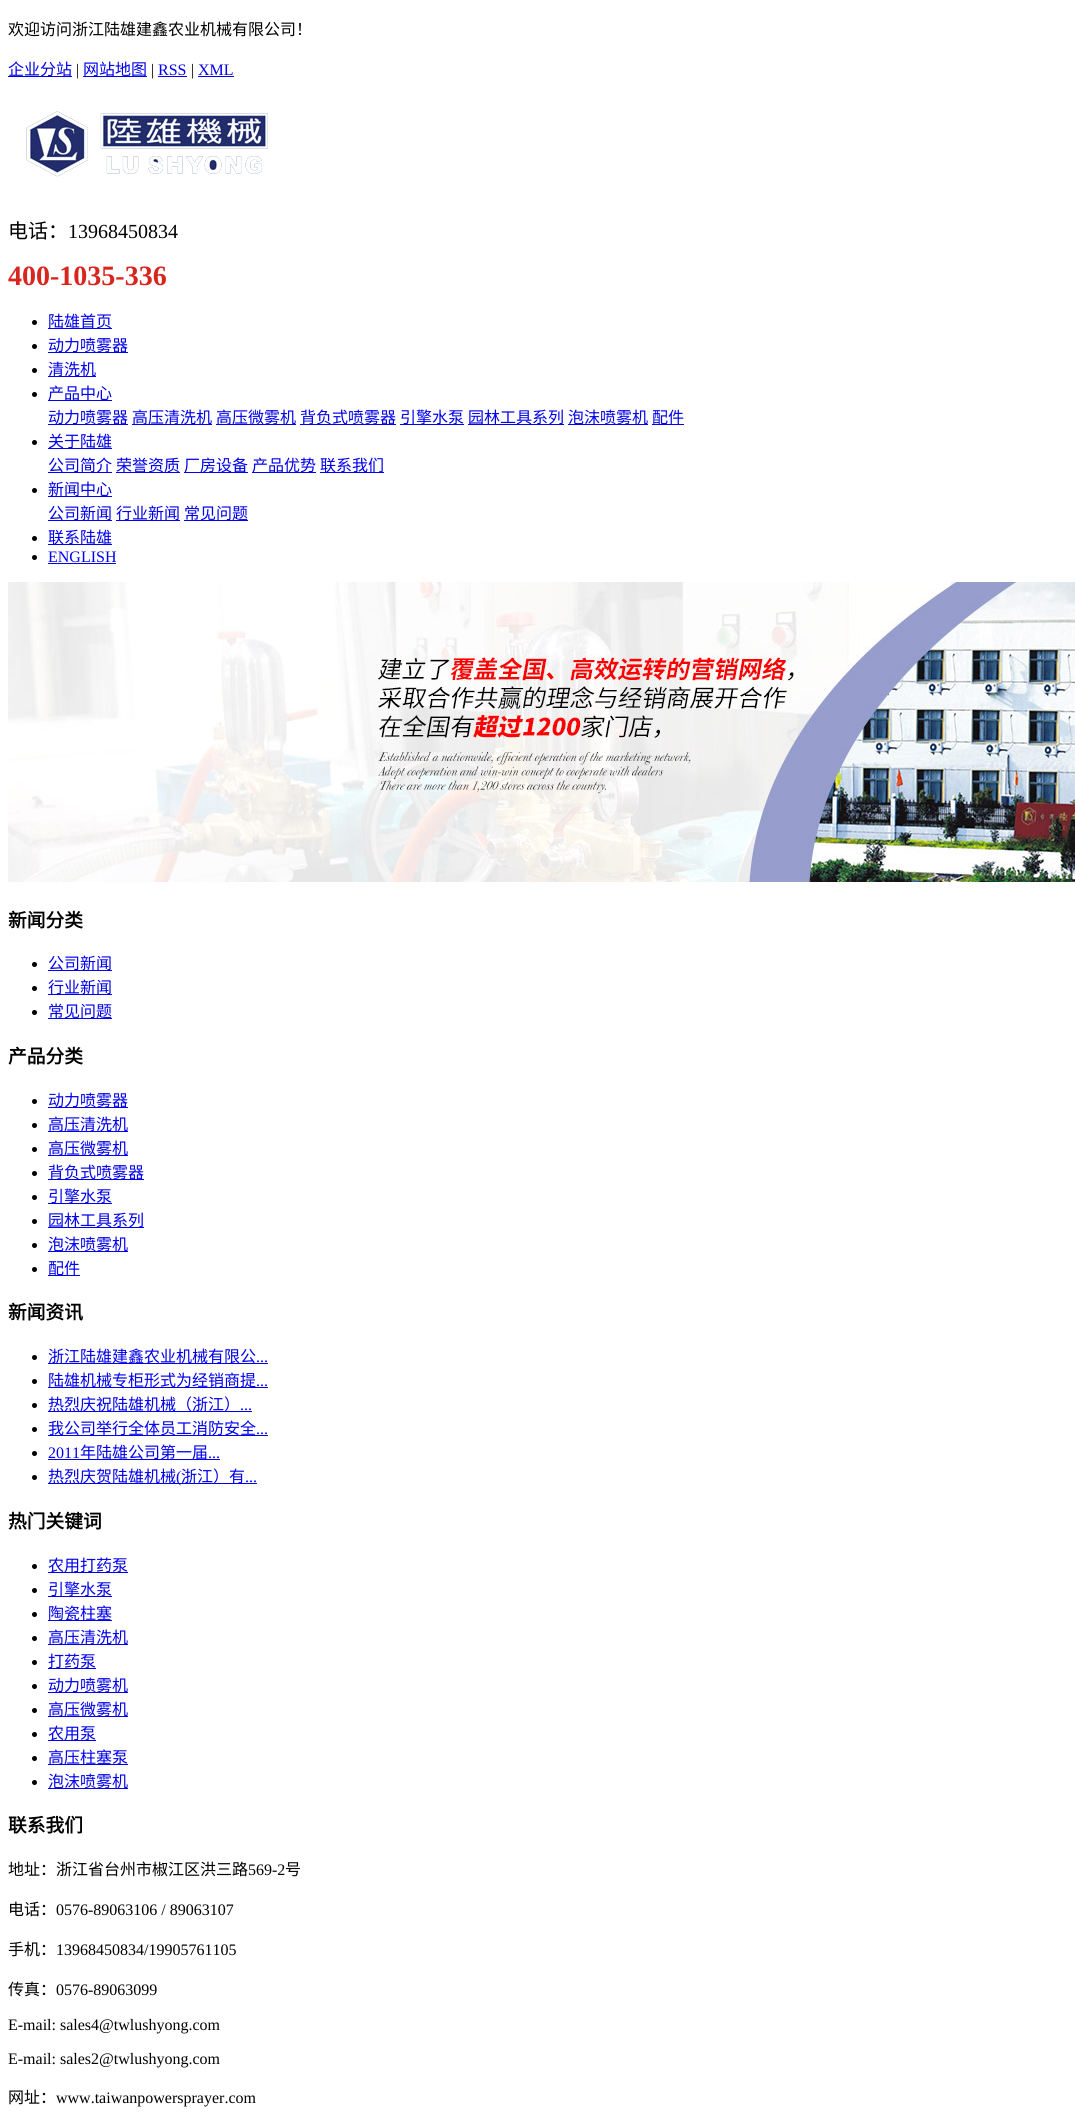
import math
import cairo



def draw_image(context, path, x, y, w, h):
    context.save()
    context.set_source_surface(cairo.ImageSurface.create_from_png(path), x, y)
    context.rectangle(x, y, w, h)
    context.fill()
    context.restore()


def draw(context):
    context.set_source_rgb(1, 1, 1)
    context.paint()
    context.set_source_rgb(0, 0, 238 / 255)
    context.rectangle(8, 76, 64, 1)
    context.fill()
    context.rectangle(83, 76, 64, 1)
    context.fill()
    context.rectangle(158, 76, 29, 1)
    context.fill()
    context.rectangle(198, 76, 36, 1)
    context.fill()
    draw_image(context, "images/1.png", 26, 111, 242, 66)
    context.set_source_rgb(0, 0, 0)
    context.arc(34.5, 322.5, 2.5, 0, 2 * math.pi)
    context.fill()
    context.set_source_rgb(0, 0, 238 / 255)
    context.rectangle(48, 328, 64, 1)
    context.fill()
    context.set_source_rgb(0, 0, 0)
    context.arc(34.5, 346.5, 2.5, 0, 2 * math.pi)
    context.fill()
    context.set_source_rgb(0, 0, 238 / 255)
    context.rectangle(48, 352, 80, 1)
    context.fill()
    context.set_source_rgb(0, 0, 0)
    context.arc(34.5, 370.5, 2.5, 0, 2 * math.pi)
    context.fill()
    context.set_source_rgb(0, 0, 238 / 255)
    context.rectangle(48, 376, 48, 1)
    context.fill()
    context.set_source_rgb(0, 0, 0)
    context.arc(34.5, 394.5, 2.5, 0, 2 * math.pi)
    context.fill()
    context.set_source_rgb(0, 0, 238 / 255)
    context.rectangle(48, 400, 64, 1)
    context.fill()
    context.rectangle(48, 424, 80, 1)
    context.fill()
    context.rectangle(132, 424, 80, 1)
    context.fill()
    context.rectangle(216, 424, 80, 1)
    context.fill()
    context.rectangle(300, 424, 96, 1)
    context.fill()
    context.rectangle(400, 424, 64, 1)
    context.fill()
    context.rectangle(468, 424, 96, 1)
    context.fill()
    context.rectangle(568, 424, 80, 1)
    context.fill()
    context.rectangle(652, 424, 32, 1)
    context.fill()
    context.set_source_rgb(0, 0, 0)
    context.arc(34.5, 442.5, 2.5, 0, 2 * math.pi)
    context.fill()
    context.set_source_rgb(0, 0, 238 / 255)
    context.rectangle(48, 448, 64, 1)
    context.fill()
    context.rectangle(48, 472, 64, 1)
    context.fill()
    context.rectangle(116, 472, 64, 1)
    context.fill()
    context.rectangle(184, 472, 64, 1)
    context.fill()
    context.rectangle(252, 472, 64, 1)
    context.fill()
    context.rectangle(320, 472, 64, 1)
    context.fill()
    context.set_source_rgb(0, 0, 0)
    context.arc(34.5, 490.5, 2.5, 0, 2 * math.pi)
    context.fill()
    context.set_source_rgb(0, 0, 238 / 255)
    context.rectangle(48, 496, 64, 1)
    context.fill()
    context.rectangle(48, 520, 64, 1)
    context.fill()
    context.rectangle(116, 520, 64, 1)
    context.fill()
    context.rectangle(184, 520, 64, 1)
    context.fill()
    context.set_source_rgb(0, 0, 0)
    context.arc(34.5, 538.5, 2.5, 0, 2 * math.pi)
    context.fill()
    context.set_source_rgb(0, 0, 238 / 255)
    context.rectangle(48, 544, 64, 1)
    context.fill()
    context.set_source_rgb(0, 0, 0)
    context.arc(34.5, 557.5, 2.5, 0, 2 * math.pi)
    context.fill()
    context.set_source_rgb(0, 0, 238 / 255)
    context.rectangle(48, 563, 68, 1)
    context.fill()
    draw_image(context, "images/2.png", 8, 582, 1067, 300)
    context.set_source_rgb(0, 0, 0)
    context.arc(34.5, 964.5, 2.5, 0, 2 * math.pi)
    context.fill()
    context.set_source_rgb(0, 0, 238 / 255)
    context.rectangle(48, 970, 64, 1)
    context.fill()
    context.set_source_rgb(0, 0, 0)
    context.arc(34.5, 988.5, 2.5, 0, 2 * math.pi)
    context.fill()
    context.set_source_rgb(0, 0, 238 / 255)
    context.rectangle(48, 994, 64, 1)
    context.fill()
    context.set_source_rgb(0, 0, 0)
    context.arc(34.5, 1012.5, 2.5, 0, 2 * math.pi)
    context.fill()
    context.set_source_rgb(0, 0, 238 / 255)
    context.rectangle(48, 1018, 64, 1)
    context.fill()
    context.set_source_rgb(0, 0, 0)
    context.arc(34.5, 1101.5, 2.5, 0, 2 * math.pi)
    context.fill()
    context.set_source_rgb(0, 0, 238 / 255)
    context.rectangle(48, 1107, 80, 1)
    context.fill()
    context.set_source_rgb(0, 0, 0)
    context.arc(34.5, 1125.5, 2.5, 0, 2 * math.pi)
    context.fill()
    context.set_source_rgb(0, 0, 238 / 255)
    context.rectangle(48, 1131, 80, 1)
    context.fill()
    context.set_source_rgb(0, 0, 0)
    context.arc(34.5, 1149.5, 2.5, 0, 2 * math.pi)
    context.fill()
    context.set_source_rgb(0, 0, 238 / 255)
    context.rectangle(48, 1155, 80, 1)
    context.fill()
    context.set_source_rgb(0, 0, 0)
    context.arc(34.5, 1173.5, 2.5, 0, 2 * math.pi)
    context.fill()
    context.set_source_rgb(0, 0, 238 / 255)
    context.rectangle(48, 1179, 96, 1)
    context.fill()
    context.set_source_rgb(0, 0, 0)
    context.arc(34.5, 1197.5, 2.5, 0, 2 * math.pi)
    context.fill()
    context.set_source_rgb(0, 0, 238 / 255)
    context.rectangle(48, 1203, 64, 1)
    context.fill()
    context.set_source_rgb(0, 0, 0)
    context.arc(34.5, 1221.5, 2.5, 0, 2 * math.pi)
    context.fill()
    context.set_source_rgb(0, 0, 238 / 255)
    context.rectangle(48, 1227, 96, 1)
    context.fill()
    context.set_source_rgb(0, 0, 0)
    context.arc(34.5, 1245.5, 2.5, 0, 2 * math.pi)
    context.fill()
    context.set_source_rgb(0, 0, 238 / 255)
    context.rectangle(48, 1251, 80, 1)
    context.fill()
    context.set_source_rgb(0, 0, 0)
    context.arc(34.5, 1269.5, 2.5, 0, 2 * math.pi)
    context.fill()
    context.set_source_rgb(0, 0, 238 / 255)
    context.rectangle(48, 1275, 32, 1)
    context.fill()
    context.set_source_rgb(0, 0, 0)
    context.arc(34.5, 1357.5, 2.5, 0, 2 * math.pi)
    context.fill()
    context.set_source_rgb(0, 0, 238 / 255)
    context.rectangle(48, 1363, 220, 1)
    context.fill()
    context.set_source_rgb(0, 0, 0)
    context.arc(34.5, 1381.5, 2.5, 0, 2 * math.pi)
    context.fill()
    context.set_source_rgb(0, 0, 238 / 255)
    context.rectangle(48, 1387, 220, 1)
    context.fill()
    context.set_source_rgb(0, 0, 0)
    context.arc(34.5, 1405.5, 2.5, 0, 2 * math.pi)
    context.fill()
    context.set_source_rgb(0, 0, 238 / 255)
    context.rectangle(48, 1411, 204, 1)
    context.fill()
    context.set_source_rgb(0, 0, 0)
    context.arc(34.5, 1429.5, 2.5, 0, 2 * math.pi)
    context.fill()
    context.set_source_rgb(0, 0, 238 / 255)
    context.rectangle(48, 1435, 220, 1)
    context.fill()
    context.set_source_rgb(0, 0, 0)
    context.arc(34.5, 1453.5, 2.5, 0, 2 * math.pi)
    context.fill()
    context.set_source_rgb(0, 0, 238 / 255)
    context.rectangle(48, 1459, 172, 1)
    context.fill()
    context.set_source_rgb(0, 0, 0)
    context.arc(34.5, 1477.5, 2.5, 0, 2 * math.pi)
    context.fill()
    context.set_source_rgb(0, 0, 238 / 255)
    context.rectangle(48, 1483, 209, 1)
    context.fill()
    context.set_source_rgb(0, 0, 0)
    context.arc(34.5, 1566.5, 2.5, 0, 2 * math.pi)
    context.fill()
    context.set_source_rgb(0, 0, 238 / 255)
    context.rectangle(48, 1572, 80, 1)
    context.fill()
    context.set_source_rgb(0, 0, 0)
    context.arc(34.5, 1590.5, 2.5, 0, 2 * math.pi)
    context.fill()
    context.set_source_rgb(0, 0, 238 / 255)
    context.rectangle(48, 1596, 64, 1)
    context.fill()
    context.set_source_rgb(0, 0, 0)
    context.arc(34.5, 1614.5, 2.5, 0, 2 * math.pi)
    context.fill()
    context.set_source_rgb(0, 0, 238 / 255)
    context.rectangle(48, 1620, 64, 1)
    context.fill()
    context.set_source_rgb(0, 0, 0)
    context.arc(34.5, 1638.5, 2.5, 0, 2 * math.pi)
    context.fill()
    context.set_source_rgb(0, 0, 238 / 255)
    context.rectangle(48, 1644, 80, 1)
    context.fill()
    context.set_source_rgb(0, 0, 0)
    context.arc(34.5, 1662.5, 2.5, 0, 2 * math.pi)
    context.fill()
    context.set_source_rgb(0, 0, 238 / 255)
    context.rectangle(48, 1668, 48, 1)
    context.fill()
    context.set_source_rgb(0, 0, 0)
    context.arc(34.5, 1686.5, 2.5, 0, 2 * math.pi)
    context.fill()
    context.set_source_rgb(0, 0, 238 / 255)
    context.rectangle(48, 1692, 80, 1)
    context.fill()
    context.set_source_rgb(0, 0, 0)
    context.arc(34.5, 1710.5, 2.5, 0, 2 * math.pi)
    context.fill()
    context.set_source_rgb(0, 0, 238 / 255)
    context.rectangle(48, 1716, 80, 1)
    context.fill()
    context.set_source_rgb(0, 0, 0)
    context.arc(34.5, 1734.5, 2.5, 0, 2 * math.pi)
    context.fill()
    context.set_source_rgb(0, 0, 238 / 255)
    context.rectangle(48, 1740, 48, 1)
    context.fill()
    context.set_source_rgb(0, 0, 0)
    context.arc(34.5, 1758.5, 2.5, 0, 2 * math.pi)
    context.fill()
    context.set_source_rgb(0, 0, 238 / 255)
    context.rectangle(48, 1764, 80, 1)
    context.fill()
    context.set_source_rgb(0, 0, 0)
    context.arc(34.5, 1782.5, 2.5, 0, 2 * math.pi)
    context.fill()
    context.set_source_rgb(0, 0, 238 / 255)
    context.rectangle(48, 1788, 80, 1)
    context.fill()
    context.select_font_face("Noto Sans CJK SC")
    context.set_font_size(16)
    context.set_source_rgb(0, 0, 0)
    context.move_to(8, 35)
    context.show_text("欢迎访问浙江陆雄建鑫农业机械有限公司！")
    context.set_source_rgb(0, 0, 238 / 255)
    context.move_to(8, 75)
    context.show_text("企业分站")
    context.select_font_face("Liberation Serif")
    context.set_source_rgb(0, 0, 0)
    context.move_to(76, 75)
    context.show_text("|")
    context.select_font_face("Noto Sans CJK SC")
    context.set_source_rgb(0, 0, 238 / 255)
    context.move_to(83, 75)
    context.show_text("网站地图")
    context.select_font_face("Liberation Serif")
    context.set_source_rgb(0, 0, 0)
    context.move_to(151, 75)
    context.show_text("|")
    context.set_source_rgb(0, 0, 238 / 255)
    context.move_to(158, 75)
    context.show_text("RSS")
    context.set_source_rgb(0, 0, 0)
    context.move_to(191, 75)
    context.show_text("|")
    context.set_source_rgb(0, 0, 238 / 255)
    context.move_to(198, 75)
    context.show_text("XML")
    context.select_font_face("Noto Sans CJK SC")
    context.set_font_size(20)
    context.set_source_rgb(0, 0, 0)
    context.move_to(8, 238)
    context.show_text("电话：")
    context.select_font_face("Liberation Serif")
    context.move_to(68, 238)
    context.show_text("13968450834")
    context.select_font_face("Liberation Serif", cairo.FontSlant.NORMAL, cairo.FontWeight.BOLD)
    context.set_font_size(28)
    context.set_source_rgb(216 / 255, 37 / 255, 30 / 255)
    context.move_to(8, 285)
    context.show_text("400-1035-336")
    context.select_font_face("Noto Sans CJK SC")
    context.set_font_size(16)
    context.set_source_rgb(0, 0, 238 / 255)
    context.move_to(48, 327)
    context.show_text("陆雄首页")
    context.move_to(48, 351)
    context.show_text("动力喷雾器")
    context.move_to(48, 375)
    context.show_text("清洗机")
    context.move_to(48, 399)
    context.show_text("产品中心")
    context.move_to(48, 423)
    context.show_text("动力喷雾器")
    context.move_to(132, 423)
    context.show_text("高压清洗机")
    context.move_to(216, 423)
    context.show_text("高压微雾机")
    context.move_to(300, 423)
    context.show_text("背负式喷雾器")
    context.move_to(400, 423)
    context.show_text("引擎水泵")
    context.move_to(468, 423)
    context.show_text("园林工具系列")
    context.move_to(568, 423)
    context.show_text("泡沫喷雾机")
    context.move_to(652, 423)
    context.show_text("配件")
    context.move_to(48, 447)
    context.show_text("关于陆雄")
    context.move_to(48, 471)
    context.show_text("公司简介")
    context.move_to(116, 471)
    context.show_text("荣誉资质")
    context.move_to(184, 471)
    context.show_text("厂房设备")
    context.move_to(252, 471)
    context.show_text("产品优势")
    context.move_to(320, 471)
    context.show_text("联系我们")
    context.move_to(48, 495)
    context.show_text("新闻中心")
    context.move_to(48, 519)
    context.show_text("公司新闻")
    context.move_to(116, 519)
    context.show_text("行业新闻")
    context.move_to(184, 519)
    context.show_text("常见问题")
    context.move_to(48, 543)
    context.show_text("联系陆雄")
    context.select_font_face("Liberation Serif")
    context.move_to(48, 562)
    context.show_text("ENGLISH")
    context.select_font_face("Noto Sans CJK SC", cairo.FontSlant.NORMAL, cairo.FontWeight.BOLD)
    context.set_font_size(18.75)
    context.set_source_rgb(0, 0, 0)
    context.move_to(8, 927)
    context.show_text("新闻分类")
    context.select_font_face("Noto Sans CJK SC")
    context.set_font_size(16)
    context.set_source_rgb(0, 0, 238 / 255)
    context.move_to(48, 969)
    context.show_text("公司新闻")
    context.move_to(48, 993)
    context.show_text("行业新闻")
    context.move_to(48, 1017)
    context.show_text("常见问题")
    context.select_font_face("Noto Sans CJK SC", cairo.FontSlant.NORMAL, cairo.FontWeight.BOLD)
    context.set_font_size(18.75)
    context.set_source_rgb(0, 0, 0)
    context.move_to(8, 1063)
    context.show_text("产品分类")
    context.select_font_face("Noto Sans CJK SC")
    context.set_font_size(16)
    context.set_source_rgb(0, 0, 238 / 255)
    context.move_to(48, 1106)
    context.show_text("动力喷雾器")
    context.move_to(48, 1130)
    context.show_text("高压清洗机")
    context.move_to(48, 1154)
    context.show_text("高压微雾机")
    context.move_to(48, 1178)
    context.show_text("背负式喷雾器")
    context.move_to(48, 1202)
    context.show_text("引擎水泵")
    context.move_to(48, 1226)
    context.show_text("园林工具系列")
    context.move_to(48, 1250)
    context.show_text("泡沫喷雾机")
    context.move_to(48, 1274)
    context.show_text("配件")
    context.select_font_face("Noto Sans CJK SC", cairo.FontSlant.NORMAL, cairo.FontWeight.BOLD)
    context.set_font_size(18.75)
    context.set_source_rgb(0, 0, 0)
    context.move_to(8, 1319)
    context.show_text("新闻资讯")
    context.select_font_face("Noto Sans CJK SC")
    context.set_font_size(16)
    context.set_source_rgb(0, 0, 238 / 255)
    context.move_to(48, 1362)
    context.show_text("浙江陆雄建鑫农业机械有限公")
    context.select_font_face("Liberation Serif")
    context.move_to(256, 1362)
    context.show_text("...")
    context.select_font_face("Noto Sans CJK SC")
    context.move_to(48, 1386)
    context.show_text("陆雄机械专柜形式为经销商提")
    context.select_font_face("Liberation Serif")
    context.move_to(256, 1386)
    context.show_text("...")
    context.select_font_face("Noto Sans CJK SC")
    context.move_to(48, 1410)
    context.show_text("热烈庆祝陆雄机械（浙江）")
    context.select_font_face("Liberation Serif")
    context.move_to(240, 1410)
    context.show_text("...")
    context.select_font_face("Noto Sans CJK SC")
    context.move_to(48, 1434)
    context.show_text("我公司举行全体员工消防安全")
    context.select_font_face("Liberation Serif")
    context.move_to(256, 1434)
    context.show_text("...")
    context.move_to(48, 1458)
    context.show_text("2011")
    context.select_font_face("Noto Sans CJK SC")
    context.move_to(80, 1458)
    context.show_text("年陆雄公司第一届")
    context.select_font_face("Liberation Serif")
    context.move_to(208, 1458)
    context.show_text("...")
    context.select_font_face("Noto Sans CJK SC")
    context.move_to(48, 1482)
    context.show_text("热烈庆贺陆雄机械")
    context.select_font_face("Liberation Serif")
    context.move_to(176, 1482)
    context.show_text("(")
    context.select_font_face("Noto Sans CJK SC")
    context.move_to(181, 1482)
    context.show_text("浙江）有")
    context.select_font_face("Liberation Serif")
    context.move_to(245, 1482)
    context.show_text("...")
    context.select_font_face("Noto Sans CJK SC", cairo.FontSlant.NORMAL, cairo.FontWeight.BOLD)
    context.set_font_size(18.75)
    context.set_source_rgb(0, 0, 0)
    context.move_to(8, 1528)
    context.show_text("热门关键词")
    context.select_font_face("Noto Sans CJK SC")
    context.set_font_size(16)
    context.set_source_rgb(0, 0, 238 / 255)
    context.move_to(48, 1571)
    context.show_text("农用打药泵")
    context.move_to(48, 1595)
    context.show_text("引擎水泵")
    context.move_to(48, 1619)
    context.show_text("陶瓷柱塞")
    context.move_to(48, 1643)
    context.show_text("高压清洗机")
    context.move_to(48, 1667)
    context.show_text("打药泵")
    context.move_to(48, 1691)
    context.show_text("动力喷雾机")
    context.move_to(48, 1715)
    context.show_text("高压微雾机")
    context.move_to(48, 1739)
    context.show_text("农用泵")
    context.move_to(48, 1763)
    context.show_text("高压柱塞泵")
    context.move_to(48, 1787)
    context.show_text("泡沫喷雾机")
    context.select_font_face("Noto Sans CJK SC", cairo.FontSlant.NORMAL, cairo.FontWeight.BOLD)
    context.set_font_size(18.75)
    context.set_source_rgb(0, 0, 0)
    context.move_to(8, 1832)
    context.show_text("联系我们")
    context.select_font_face("Noto Sans CJK SC")
    context.set_font_size(16)
    context.move_to(8, 1875)
    context.show_text("地址：浙江省台州市椒江区洪三路")
    context.select_font_face("Liberation Serif")
    context.move_to(248, 1875)
    context.show_text("569-2")
    context.select_font_face("Noto Sans CJK SC")
    context.move_to(285, 1875)
    context.show_text("号")
    context.move_to(8, 1915)
    context.show_text("电话：")
    context.select_font_face("Liberation Serif")
    context.move_to(56, 1915)
    context.show_text("0576-89063106 / 89063107")
    context.select_font_face("Noto Sans CJK SC")
    context.move_to(8, 1955)
    context.show_text("手机：")
    context.select_font_face("Liberation Serif")
    context.move_to(56, 1955)
    context.show_text("13968450834/19905761105")
    context.select_font_face("Noto Sans CJK SC")
    context.move_to(8, 1995)
    context.show_text("传真：")
    context.select_font_face("Liberation Serif")
    context.move_to(56, 1995)
    context.show_text("0576-89063099")
    context.move_to(8, 2030)
    context.show_text("E-mail: sales4@twlushyong.com")
    context.move_to(8, 2064)
    context.show_text("E-mail: sales2@twlushyong.com")
    context.select_font_face("Noto Sans CJK SC")
    context.move_to(8, 2103)
    context.show_text("网址：")
    context.select_font_face("Liberation Serif")
    context.move_to(56, 2103)
    context.show_text("www.taiwanpowersprayer.com")


surface = cairo.ImageSurface(cairo.Format.RGB24, 1075, 2112)
context = cairo.Context(surface)
options = cairo.FontOptions()
options.set_hint_metrics(cairo.HintMetrics.OFF)
options.set_hint_style(cairo.HintStyle.NONE)
context.set_font_options(options)
context.set_miter_limit(4)
draw(context)
surface.write_to_png("out.png")
